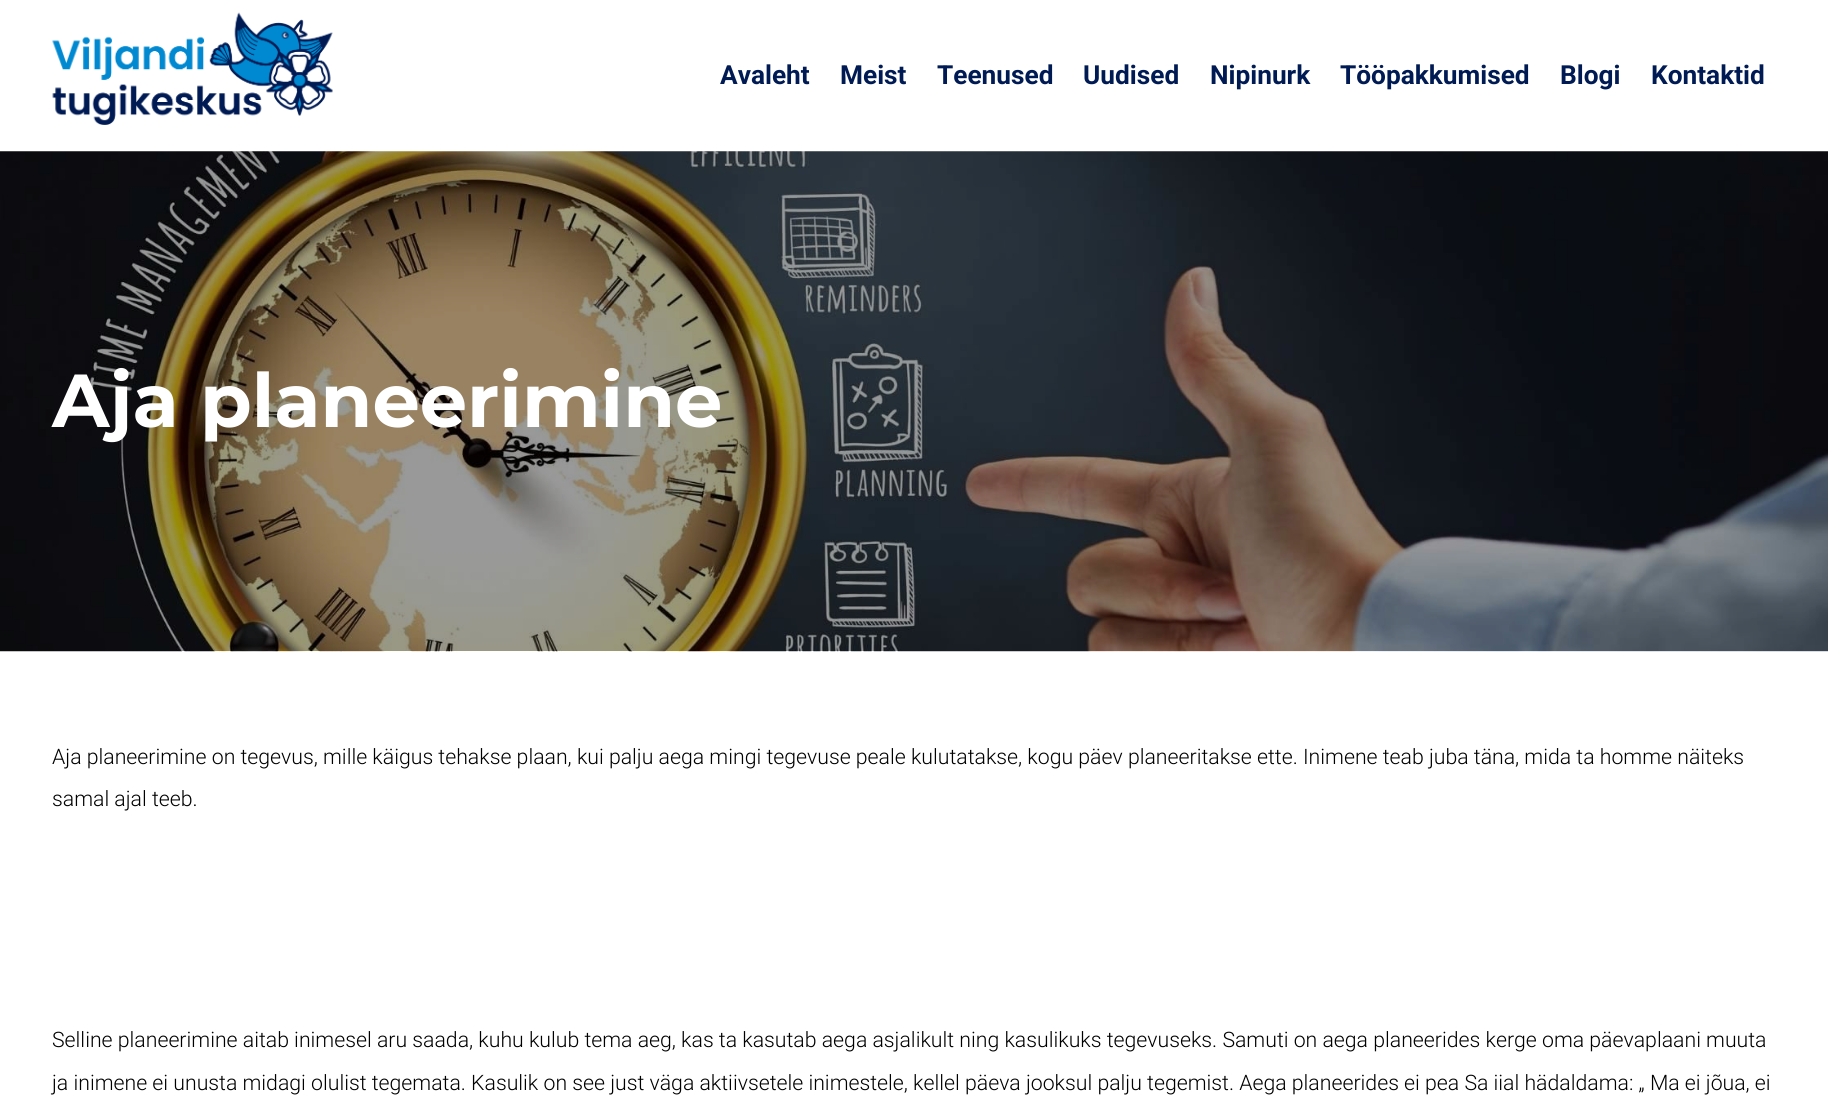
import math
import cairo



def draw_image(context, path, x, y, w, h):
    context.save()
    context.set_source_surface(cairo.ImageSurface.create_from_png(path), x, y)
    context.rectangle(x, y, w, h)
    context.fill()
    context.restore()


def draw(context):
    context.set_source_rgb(1, 1, 1)
    context.paint()
    draw_image(context, "images/1.png", 52, 12, 281, 113)
    draw_image(context, "images/2.png", 0, 151, 1828, 501)
    context.select_font_face("Roboto", cairo.FontSlant.NORMAL, cairo.FontWeight.BOLD)
    context.set_font_size(26.25)
    context.set_source_rgb(0, 27 / 255, 84 / 255)
    context.move_to(720, 84)
    context.show_text("Avaleht")
    context.move_to(840, 84)
    context.show_text("Meist")
    context.move_to(937, 84)
    context.show_text("Teenused")
    context.move_to(1083, 84)
    context.show_text("Uudised")
    context.move_to(1210, 84)
    context.show_text("Nipinurk")
    context.move_to(1340, 84)
    context.show_text("Tööpakkumised")
    context.move_to(1560, 84)
    context.show_text("Blogi")
    context.move_to(1651, 84)
    context.show_text("Kontaktid")
    context.select_font_face("Montserrat Thin")
    context.set_font_size(75)
    context.set_source_rgb(1, 1, 1)
    context.move_to(52, 427)
    context.show_text("Aja planeerimine")
    context.select_font_face("Roboto Light")
    context.set_font_size(21.25)
    context.set_source_rgb(0, 0, 0)
    context.move_to(52, 764)
    context.show_text("Aja planeerimine on tegevus, mille käigus tehakse plaan, kui palju aega mingi tegevuse peale kulutatakse, kogu päev planeeritakse ette. Inimene teab juba täna, mida ta homme näiteks")
    context.move_to(52, 806)
    context.show_text("samal ajal teeb.")
    context.move_to(52, 1047)
    context.show_text("Selline planeerimine aitab inimesel aru saada, kuhu kulub tema aeg, kas ta kasutab aega asjalikult ning kasulikuks tegevuseks. Samuti on aega planeerides kerge oma päevaplaani muuta")
    context.move_to(52, 1090)
    context.show_text("ja inimene ei unusta midagi olulist tegemata. Kasulik on see just väga aktiivsetele inimestele, kellel päeva jooksul palju tegemist. Aega planeerides ei pea Sa iial hädaldama: „ Ma ei jõua, ei")


surface = cairo.ImageSurface(cairo.Format.RGB24, 1828, 1120)
context = cairo.Context(surface)
options = cairo.FontOptions()
options.set_hint_metrics(cairo.HintMetrics.OFF)
options.set_hint_style(cairo.HintStyle.NONE)
context.set_font_options(options)
context.set_miter_limit(4)
draw(context)
surface.write_to_png("out.png")
